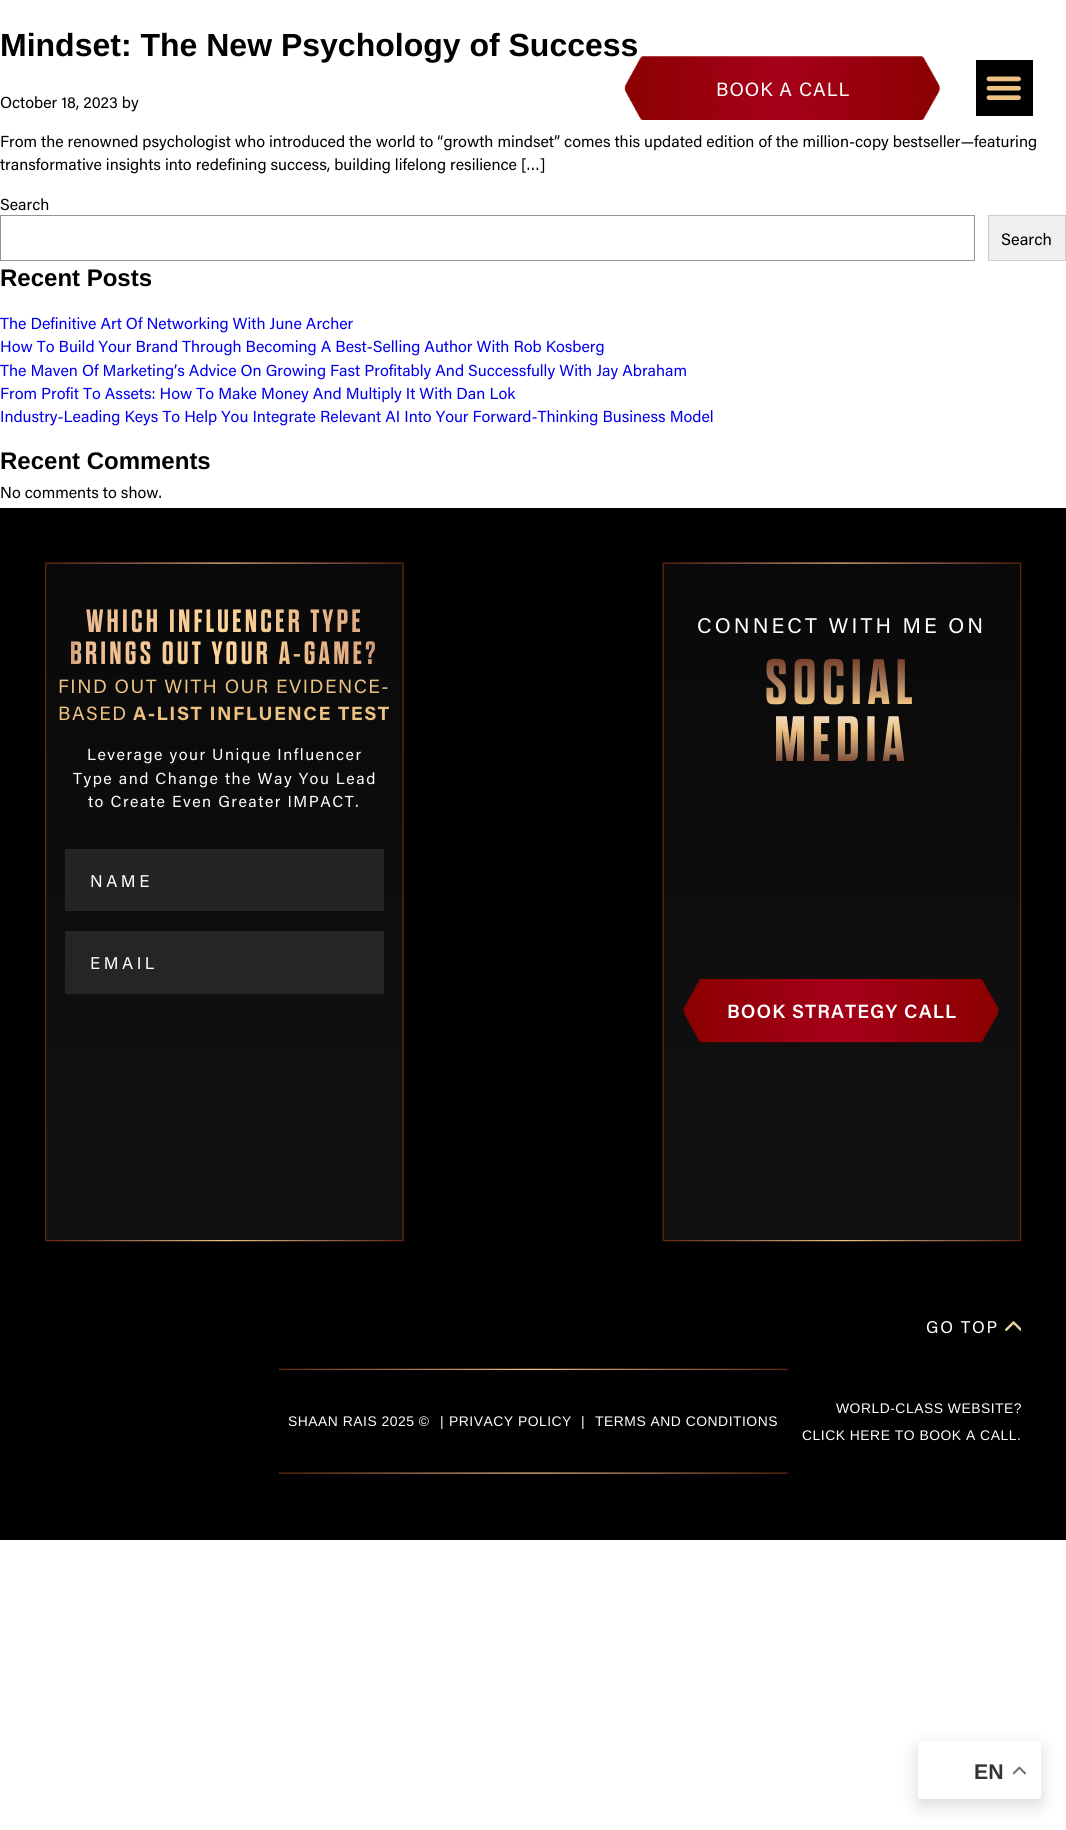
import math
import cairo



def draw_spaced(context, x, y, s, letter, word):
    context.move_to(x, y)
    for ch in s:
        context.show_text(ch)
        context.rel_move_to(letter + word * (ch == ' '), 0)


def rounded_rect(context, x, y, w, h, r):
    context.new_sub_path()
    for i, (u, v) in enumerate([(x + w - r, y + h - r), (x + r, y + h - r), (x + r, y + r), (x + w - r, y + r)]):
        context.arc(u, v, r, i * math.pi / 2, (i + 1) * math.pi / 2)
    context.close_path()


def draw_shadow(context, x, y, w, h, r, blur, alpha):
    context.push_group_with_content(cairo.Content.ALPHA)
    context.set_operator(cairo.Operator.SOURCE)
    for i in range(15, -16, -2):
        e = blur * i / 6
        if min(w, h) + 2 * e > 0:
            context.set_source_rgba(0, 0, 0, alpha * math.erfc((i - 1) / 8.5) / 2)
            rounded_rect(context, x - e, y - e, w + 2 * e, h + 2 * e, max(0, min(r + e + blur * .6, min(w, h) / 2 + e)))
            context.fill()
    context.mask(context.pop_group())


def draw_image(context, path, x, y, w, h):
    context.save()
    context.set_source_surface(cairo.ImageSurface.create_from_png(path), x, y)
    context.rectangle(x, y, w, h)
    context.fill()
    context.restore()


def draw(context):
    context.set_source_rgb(1, 1, 1)
    context.paint()
    context.rectangle(0.5, 215.5, 974, 45)
    context.set_source_rgb(148 / 255, 148 / 255, 148 / 255)
    context.set_line_width(1)
    context.stroke()
    context.set_source_rgb(239 / 255, 239 / 255, 239 / 255)
    context.rectangle(988.5, 215.5, 77, 45)
    context.fill_preserve()
    context.set_source_rgb(204 / 255, 204 / 255, 204 / 255)
    context.stroke()
    context.set_source_rgb(0, 0, 0)
    context.rectangle(976, 60, 57, 56)
    context.fill()
    draw_image(context, "images/2.png", 986, 76, 35, 24)
    context.rectangle(0, 508, 1066, 1032)
    context.fill()
    gradient = cairo.LinearGradient(224, -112, 224, 564)
    gradient.add_color_stop_rgba(0, 9 / 255, 9 / 255, 9 / 255, 1)
    gradient.add_color_stop_rgba(0.88, 17 / 255, 17 / 255, 17 / 255, 1)
    context.set_source(gradient)
    context.rectangle(45, 563, 359, 1)
    context.fill()
    gradient = cairo.LinearGradient(224, 564, 224, 1240)
    gradient.add_color_stop_rgba(0, 9 / 255, 9 / 255, 9 / 255, 1)
    gradient.add_color_stop_rgba(0.88, 17 / 255, 17 / 255, 17 / 255, 1)
    context.set_source(gradient)
    context.rectangle(46, 564, 358, 676)
    context.fill()
    draw_image(context, "images/3.png", 45, 562, 359, 680)
    context.set_source_rgb(36 / 255, 36 / 255, 36 / 255)
    context.rectangle(65, 849, 319, 62)
    context.fill()
    context.set_source_rgb(37 / 255, 37 / 255, 37 / 255)
    context.rectangle(65, 931, 319, 63)
    context.fill()
    gradient = cairo.LinearGradient(842, 564, 842, 1240)
    gradient.add_color_stop_rgba(0, 9 / 255, 9 / 255, 9 / 255, 1)
    gradient.add_color_stop_rgba(0.88, 17 / 255, 17 / 255, 17 / 255, 1)
    context.set_source(gradient)
    context.rectangle(663, 564, 357, 676)
    context.fill()
    draw_image(context, "images/4.png", 662, 562, 360, 680)
    draw_image(context, "images/5.png", 683, 978, 316, 65)
    draw_image(context, "images/6.png", 278, 1368, 510, 106)
    draw_image(context, "images/7.png", 1005, 1321, 16, 10)
    context.set_source_rgb(0, 0, 0)
    draw_shadow(context, 918, 1748, 123, 57, 2.5, 9.5, 0.15)
    context.set_source_rgb(1, 1, 1)
    rounded_rect(context, 918, 1741, 123, 58, 2.5)
    context.fill()
    draw_image(context, "images/8.png", 1013, 1766, 13, 9)
    context.select_font_face("Liberation Sans", cairo.FontSlant.NORMAL, cairo.FontWeight.BOLD)
    context.set_font_size(32)
    context.set_source_rgb(0, 0, 0)
    context.move_to(0, 56)
    context.show_text("Mindset: The New Psychology of Success")
    context.select_font_face("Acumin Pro")
    context.set_font_size(16)
    context.move_to(0, 108)
    context.show_text("October 18, 2023 by")
    context.move_to(0, 147)
    context.show_text("From the renowned psychologist who introduced the world to “growth mindset” comes this updated edition of the million-copy bestseller—featuring")
    context.move_to(0, 170)
    context.show_text("transformative insights into redefining success, building lifelong resilience […]")
    context.move_to(0, 210)
    context.show_text("Search")
    context.set_font_size(16.5)
    context.move_to(1001, 245)
    context.show_text("Search")
    context.select_font_face("Liberation Sans", cairo.FontSlant.NORMAL, cairo.FontWeight.BOLD)
    context.set_font_size(24)
    context.move_to(0, 286)
    context.show_text("Recent Posts")
    context.select_font_face("Acumin Pro")
    context.set_font_size(16)
    context.set_source_rgb(0, 0, 238 / 255)
    context.move_to(0, 329)
    context.show_text("The Definitive Art Of Networking With June Archer")
    context.move_to(0, 352)
    context.show_text("How To Build Your Brand Through Becoming A Best-Selling Author With Rob Kosberg")
    context.move_to(0, 376)
    context.show_text("The Maven Of Marketing’s Advice On Growing Fast Profitably And Successfully With Jay Abraham")
    context.move_to(0, 399)
    context.show_text("From Profit To Assets: How To Make Money And Multiply It With Dan Lok")
    context.move_to(0, 422)
    context.show_text("Industry-Leading Keys To Help You Integrate Relevant AI Into Your Forward-Thinking Business Model")
    context.select_font_face("Liberation Sans", cairo.FontSlant.NORMAL, cairo.FontWeight.BOLD)
    context.set_font_size(24)
    context.set_source_rgb(0, 0, 0)
    context.move_to(0, 469)
    context.show_text("Recent Comments")
    context.select_font_face("Acumin Pro")
    context.set_font_size(16)
    context.move_to(0, 498)
    context.show_text("No comments to show.")
    draw_image(context, "images/1.png", 624, 56, 316, 64)
    context.set_font_size(19.2)
    context.set_source_rgb(1, 1, 1)
    draw_spaced(context, 716, 96, "BOOK A CALL", 1, 0)
    context.select_font_face("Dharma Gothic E", cairo.FontSlant.NORMAL, cairo.FontWeight.BOLD)
    context.set_font_size(32.25)
    gradient = cairo.LinearGradient(431, 639, 16, 639)
    gradient.add_color_stop_rgba(0, 99 / 255, 38 / 255, 14 / 255, 1)
    gradient.add_color_stop_rgba(0.09, 157 / 255, 114 / 255, 87 / 255, 1)
    gradient.add_color_stop_rgba(0.16, 222 / 255, 169 / 255, 128 / 255, 1)
    gradient.add_color_stop_rgba(0.5, 1, 214 / 255, 153 / 255, 1)
    gradient.add_color_stop_rgba(0.84, 236 / 255, 187 / 255, 146 / 255, 1)
    gradient.add_color_stop_rgba(0.91, 157 / 255, 114 / 255, 87 / 255, 1)
    gradient.add_color_stop_rgba(1, 99 / 255, 38 / 255, 14 / 255, 1)
    context.set_source(gradient)
    draw_spaced(context, 86, 632, "WHICH INFLUENCER TYPE", 3.2, 0)
    draw_spaced(context, 70, 664, "BRINGS OUT YOUR A-GAME?", 3.2, 0)
    context.select_font_face("Acumin Pro")
    context.set_font_size(19.2)
    context.set_source_rgb(236 / 255, 193 / 255, 130 / 255)
    draw_spaced(context, 58, 693, "FIND OUT WITH OUR EVIDENCE-", 1.5, 0)
    draw_spaced(context, 58, 720, "BASED", 1.5, 0)
    context.select_font_face("Acumin Pro", cairo.FontSlant.NORMAL, cairo.FontWeight.BOLD)
    draw_spaced(context, 133, 720, "A-LIST INFLUENCE TEST", 1.5, 0)
    context.select_font_face("Acumin Pro")
    context.set_font_size(16)
    context.set_source_rgb(1, 1, 1)
    draw_spaced(context, 87, 760, "Leverage your Unique Influencer", 1.5, 0)
    draw_spaced(context, 73, 784, "Type and Change the Way You Lead", 1.5, 0)
    draw_spaced(context, 88, 807, "to Create Even Greater IMPACT.", 1.5, 0)
    context.set_font_size(17)
    draw_spaced(context, 90, 887, "NAME", 3.5, 0)
    draw_spaced(context, 90, 969, "EMAIL", 3.5, 0)
    context.set_font_size(21.25)
    draw_spaced(context, 697, 633, "CONNECT WITH ME ON", 3.1, 0)
    context.select_font_face("Dharma Gothic E", cairo.FontSlant.NORMAL, cairo.FontWeight.BOLD)
    context.set_font_size(64)
    gradient = cairo.LinearGradient(842, 647, 842, 770)
    gradient.add_color_stop_rgba(0, 99 / 255, 38 / 255, 14 / 255, 1)
    gradient.add_color_stop_rgba(0.26, 157 / 255, 114 / 255, 87 / 255, 1)
    gradient.add_color_stop_rgba(0.46, 236 / 255, 193 / 255, 130 / 255, 1)
    gradient.add_color_stop_rgba(0.52, 245 / 255, 226 / 255, 214 / 255, 1)
    gradient.add_color_stop_rgba(0.68, 236 / 255, 193 / 255, 130 / 255, 1)
    gradient.add_color_stop_rgba(0.86, 157 / 255, 114 / 255, 87 / 255, 1)
    gradient.add_color_stop_rgba(1, 99 / 255, 38 / 255, 14 / 255, 1)
    context.set_source(gradient)
    draw_spaced(context, 765, 704, "SOCIAL", 5.5, 0)
    draw_spaced(context, 774, 761, "MEDIA", 5.5, 0)
    context.select_font_face("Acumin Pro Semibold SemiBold")
    context.set_font_size(19.2)
    context.set_source_rgb(1, 1, 1)
    draw_spaced(context, 727, 1018, "BOOK STRATEGY CALL", 1.1, 0)
    context.select_font_face("Liberation Sans")
    context.set_font_size(13.9)
    draw_spaced(context, 288, 1426, "SHAAN RAIS 2025 ©", 0.5, 0)
    draw_spaced(context, 440, 1426, "|", 0.5, 0)
    draw_spaced(context, 449, 1426, "PRIVACY POLICY", 0.5, 0)
    draw_spaced(context, 581, 1426, "|", 0.5, 0)
    draw_spaced(context, 595, 1426, "TERMS AND CONDITIONS", 0.5, 0)
    context.select_font_face("Acumin Pro")
    context.set_font_size(17)
    draw_spaced(context, 926, 1333, "GO TOP", 1.75, 0)
    context.select_font_face("Liberation Sans")
    context.set_font_size(13.9)
    draw_spaced(context, 836, 1413, "WORLD-CLASS WEBSITE?", 0.5, 0)
    draw_spaced(context, 802, 1440, "CLICK HERE TO BOOK A CALL.", 0.5, 0)
    context.select_font_face("Liberation Sans", cairo.FontSlant.NORMAL, cairo.FontWeight.BOLD)
    context.set_font_size(21.25)
    context.set_source_rgb(51 / 255, 51 / 255, 51 / 255)
    context.move_to(974, 1779)
    context.show_text("EN")


surface = cairo.ImageSurface(cairo.Format.RGB24, 1066, 1830)
context = cairo.Context(surface)
options = cairo.FontOptions()
options.set_hint_metrics(cairo.HintMetrics.OFF)
options.set_hint_style(cairo.HintStyle.NONE)
context.set_font_options(options)
context.set_miter_limit(4)
draw(context)
surface.write_to_png("out.png")
